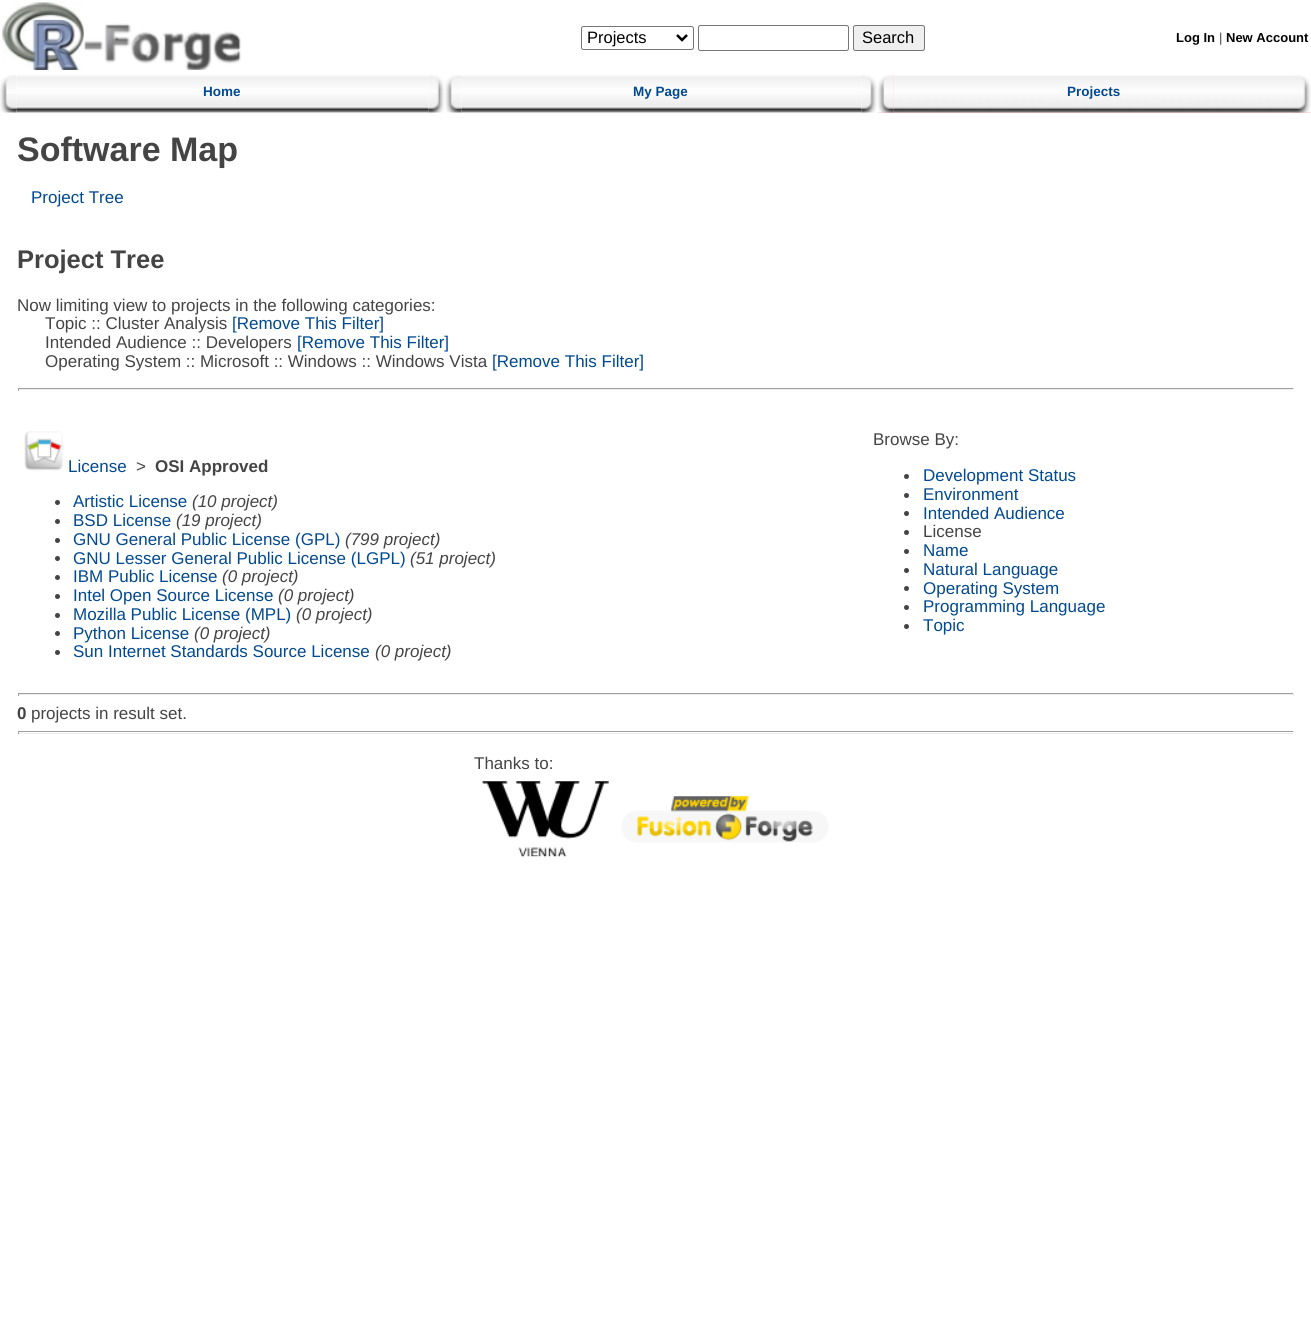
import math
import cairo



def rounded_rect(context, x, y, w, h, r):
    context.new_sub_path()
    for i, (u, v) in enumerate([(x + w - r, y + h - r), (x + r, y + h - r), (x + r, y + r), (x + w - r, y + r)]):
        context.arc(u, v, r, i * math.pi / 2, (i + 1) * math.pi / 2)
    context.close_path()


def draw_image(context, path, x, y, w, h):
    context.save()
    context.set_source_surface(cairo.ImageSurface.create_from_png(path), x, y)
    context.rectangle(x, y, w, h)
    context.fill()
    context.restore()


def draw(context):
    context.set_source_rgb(1, 1, 1)
    context.paint()
    draw_image(context, "images/1.png", 2, 2, 239, 68)
    rounded_rect(context, 581.5, 26.5, 112, 23, 2)
    context.set_source_rgb(118 / 255, 118 / 255, 118 / 255)
    context.set_line_width(1)
    context.stroke()
    context.new_path()
    context.move_to(677, 35)
    context.line_to(682, 40)
    context.line_to(687, 35)
    context.set_source_rgb(0, 0, 0)
    context.set_line_width(2.5)
    context.stroke()
    rounded_rect(context, 698.5, 25.5, 150, 25, 2)
    context.set_source_rgb(118 / 255, 118 / 255, 118 / 255)
    context.set_line_width(1)
    context.stroke()
    context.set_source_rgb(239 / 255, 239 / 255, 239 / 255)
    rounded_rect(context, 853.5, 25.5, 71, 25, 2)
    context.fill_preserve()
    context.set_source_rgb(118 / 255, 118 / 255, 118 / 255)
    context.stroke()
    draw_image(context, "images/2.png", 0, 75, 17, 38)
    draw_image(context, "images/3.png", 16, 75, 413, 38)
    draw_image(context, "images/4.png", 428, 75, 17, 38)
    draw_image(context, "images/5.png", 445, 75, 17, 38)
    draw_image(context, "images/6.png", 461, 75, 401, 38)
    draw_image(context, "images/7.png", 861, 75, 16, 38)
    context.set_source_rgb(1, 192 / 255, 203 / 255)
    context.rectangle(878, 75, 16, 38)
    context.fill()
    draw_image(context, "images/8.png", 877, 75, 17, 38)
    context.rectangle(894, 112, 417, 1)
    context.fill()
    draw_image(context, "images/9.png", 893, 75, 402, 38)
    draw_image(context, "images/10.png", 1295, 75, 16, 38)
    context.set_source_rgb(159 / 255, 159 / 255, 159 / 255)
    context.rectangle(18, 388, 1276, 1)
    context.fill()
    context.set_source_rgb(238 / 255, 238 / 255, 238 / 255)
    context.rectangle(1293, 388, 1, 3)
    context.fill()
    context.rectangle(18, 389, 1276, 1)
    context.fill()
    context.set_source_rgb(159 / 255, 159 / 255, 159 / 255)
    context.rectangle(18, 388, 1, 3)
    context.fill()
    draw_image(context, "images/11.png", 24, 431, 39, 40)
    context.set_source_rgb(68 / 255, 68 / 255, 68 / 255)
    context.arc(57.5, 502.5, 2.5, 0, 2 * math.pi)
    context.fill()
    context.arc(57.5, 521.5, 2.5, 0, 2 * math.pi)
    context.fill()
    context.arc(57.5, 540.5, 2.5, 0, 2 * math.pi)
    context.fill()
    context.arc(57.5, 558.5, 2.5, 0, 2 * math.pi)
    context.fill()
    context.arc(57.5, 577.5, 2.5, 0, 2 * math.pi)
    context.fill()
    context.arc(57.5, 596.5, 2.5, 0, 2 * math.pi)
    context.fill()
    context.arc(57.5, 615.5, 2.5, 0, 2 * math.pi)
    context.fill()
    context.arc(57.5, 633.5, 2.5, 0, 2 * math.pi)
    context.fill()
    context.arc(57.5, 652.5, 2.5, 0, 2 * math.pi)
    context.fill()
    context.arc(906.5, 476.5, 2.5, 0, 2 * math.pi)
    context.fill()
    context.arc(906.5, 495.5, 2.5, 0, 2 * math.pi)
    context.fill()
    context.arc(906.5, 513.5, 2.5, 0, 2 * math.pi)
    context.fill()
    context.arc(906.5, 532.5, 2.5, 0, 2 * math.pi)
    context.fill()
    context.arc(906.5, 551.5, 2.5, 0, 2 * math.pi)
    context.fill()
    context.arc(906.5, 570.5, 2.5, 0, 2 * math.pi)
    context.fill()
    context.arc(906.5, 588.5, 2.5, 0, 2 * math.pi)
    context.fill()
    context.arc(906.5, 607.5, 2.5, 0, 2 * math.pi)
    context.fill()
    context.arc(906.5, 626.5, 2.5, 0, 2 * math.pi)
    context.fill()
    context.set_source_rgb(159 / 255, 159 / 255, 159 / 255)
    context.rectangle(18, 693, 1276, 1)
    context.fill()
    context.set_source_rgb(238 / 255, 238 / 255, 238 / 255)
    context.rectangle(1293, 693, 1, 3)
    context.fill()
    context.rectangle(18, 694, 1276, 1)
    context.fill()
    context.set_source_rgb(159 / 255, 159 / 255, 159 / 255)
    context.rectangle(18, 693, 1, 3)
    context.fill()
    context.rectangle(18, 731, 1276, 1)
    context.fill()
    context.set_source_rgb(238 / 255, 238 / 255, 238 / 255)
    context.rectangle(1293, 731, 1, 3)
    context.fill()
    context.rectangle(18, 733, 1276, 1)
    context.fill()
    context.set_source_rgb(159 / 255, 159 / 255, 159 / 255)
    context.rectangle(18, 731, 1, 3)
    context.fill()
    draw_image(context, "images/12.png", 482, 781, 127, 76)
    draw_image(context, "images/13.png", 621, 796, 208, 47)
    context.select_font_face("Liberation Sans")
    context.set_font_size(16.5)
    context.set_source_rgb(0, 0, 0)
    context.move_to(587, 43)
    context.show_text("Projects")
    context.move_to(862, 43)
    context.show_text("Search")
    context.select_font_face("Liberation Sans", cairo.FontSlant.NORMAL, cairo.FontWeight.BOLD)
    context.set_font_size(13)
    context.move_to(1176, 42)
    context.show_text("Log In")
    context.select_font_face("Liberation Sans")
    context.set_source_rgb(68 / 255, 68 / 255, 68 / 255)
    context.move_to(1219, 42)
    context.show_text("|")
    context.select_font_face("Liberation Sans", cairo.FontSlant.NORMAL, cairo.FontWeight.BOLD)
    context.set_source_rgb(0, 0, 0)
    context.move_to(1226, 42)
    context.show_text("New Account")
    context.set_font_size(13.5)
    context.set_source_rgb(1 / 255, 73 / 255, 144 / 255)
    context.move_to(203, 96)
    context.show_text("Home")
    context.move_to(633, 96)
    context.show_text("My Page")
    context.move_to(1067, 96)
    context.show_text("Projects")
    context.set_font_size(34)
    context.set_source_rgb(68 / 255, 68 / 255, 68 / 255)
    context.move_to(17, 161)
    context.show_text("Software Map")
    context.select_font_face("Liberation Sans")
    context.set_font_size(17)
    context.set_source_rgb(1 / 255, 73 / 255, 144 / 255)
    context.move_to(31, 203)
    context.show_text("Project Tree")
    context.select_font_face("Liberation Sans", cairo.FontSlant.NORMAL, cairo.FontWeight.BOLD)
    context.set_font_size(25.5)
    context.set_source_rgb(68 / 255, 68 / 255, 68 / 255)
    context.move_to(17, 268)
    context.show_text("Project Tree")
    context.select_font_face("Liberation Sans")
    context.set_font_size(17)
    context.move_to(17, 311)
    context.show_text("Now limiting view to projects in the following categories:")
    context.move_to(45, 329)
    context.show_text("Topic :: Cluster Analysis")
    context.set_source_rgb(1 / 255, 73 / 255, 144 / 255)
    context.move_to(232, 329)
    context.show_text("[Remove This Filter]")
    context.set_source_rgb(68 / 255, 68 / 255, 68 / 255)
    context.move_to(45, 348)
    context.show_text("Intended Audience :: Developers")
    context.set_source_rgb(1 / 255, 73 / 255, 144 / 255)
    context.move_to(297, 348)
    context.show_text("[Remove This Filter]")
    context.set_source_rgb(68 / 255, 68 / 255, 68 / 255)
    context.move_to(45, 367)
    context.show_text("Operating System :: Microsoft :: Windows :: Windows Vista")
    context.set_source_rgb(1 / 255, 73 / 255, 144 / 255)
    context.move_to(492, 367)
    context.show_text("[Remove This Filter]")
    context.move_to(68, 472)
    context.show_text("License")
    context.set_source_rgb(68 / 255, 68 / 255, 68 / 255)
    context.move_to(136, 472)
    context.show_text(">")
    context.select_font_face("Liberation Sans", cairo.FontSlant.NORMAL, cairo.FontWeight.BOLD)
    context.move_to(155, 472)
    context.show_text("OSI Approved")
    context.select_font_face("Liberation Sans")
    context.set_source_rgb(1 / 255, 73 / 255, 144 / 255)
    context.move_to(73, 507)
    context.show_text("Artistic License")
    context.select_font_face("Liberation Sans", cairo.FontSlant.ITALIC)
    context.set_source_rgb(68 / 255, 68 / 255, 68 / 255)
    context.move_to(192, 507)
    context.show_text("(10 project)")
    context.select_font_face("Liberation Sans")
    context.set_source_rgb(1 / 255, 73 / 255, 144 / 255)
    context.move_to(73, 526)
    context.show_text("BSD License")
    context.select_font_face("Liberation Sans", cairo.FontSlant.ITALIC)
    context.set_source_rgb(68 / 255, 68 / 255, 68 / 255)
    context.move_to(176, 526)
    context.show_text("(19 project)")
    context.select_font_face("Liberation Sans")
    context.set_source_rgb(1 / 255, 73 / 255, 144 / 255)
    context.move_to(73, 545)
    context.show_text("GNU General Public License (GPL)")
    context.select_font_face("Liberation Sans", cairo.FontSlant.ITALIC)
    context.set_source_rgb(68 / 255, 68 / 255, 68 / 255)
    context.move_to(345, 545)
    context.show_text("(799 project)")
    context.select_font_face("Liberation Sans")
    context.set_source_rgb(1 / 255, 73 / 255, 144 / 255)
    context.move_to(73, 564)
    context.show_text("GNU Lesser General Public License (LGPL)")
    context.select_font_face("Liberation Sans", cairo.FontSlant.ITALIC)
    context.set_source_rgb(68 / 255, 68 / 255, 68 / 255)
    context.move_to(410, 564)
    context.show_text("(51 project)")
    context.select_font_face("Liberation Sans")
    context.set_source_rgb(1 / 255, 73 / 255, 144 / 255)
    context.move_to(73, 582)
    context.show_text("IBM Public License")
    context.select_font_face("Liberation Sans", cairo.FontSlant.ITALIC)
    context.set_source_rgb(68 / 255, 68 / 255, 68 / 255)
    context.move_to(222, 582)
    context.show_text("(0 project)")
    context.select_font_face("Liberation Sans")
    context.set_source_rgb(1 / 255, 73 / 255, 144 / 255)
    context.move_to(73, 601)
    context.show_text("Intel Open Source License")
    context.select_font_face("Liberation Sans", cairo.FontSlant.ITALIC)
    context.set_source_rgb(68 / 255, 68 / 255, 68 / 255)
    context.move_to(278, 601)
    context.show_text("(0 project)")
    context.select_font_face("Liberation Sans")
    context.set_source_rgb(1 / 255, 73 / 255, 144 / 255)
    context.move_to(73, 620)
    context.show_text("Mozilla Public License (MPL)")
    context.select_font_face("Liberation Sans", cairo.FontSlant.ITALIC)
    context.set_source_rgb(68 / 255, 68 / 255, 68 / 255)
    context.move_to(296, 620)
    context.show_text("(0 project)")
    context.select_font_face("Liberation Sans")
    context.set_source_rgb(1 / 255, 73 / 255, 144 / 255)
    context.move_to(73, 639)
    context.show_text("Python License")
    context.select_font_face("Liberation Sans", cairo.FontSlant.ITALIC)
    context.set_source_rgb(68 / 255, 68 / 255, 68 / 255)
    context.move_to(194, 639)
    context.show_text("(0 project)")
    context.select_font_face("Liberation Sans")
    context.set_source_rgb(1 / 255, 73 / 255, 144 / 255)
    context.move_to(73, 657)
    context.show_text("Sun Internet Standards Source License")
    context.select_font_face("Liberation Sans", cairo.FontSlant.ITALIC)
    context.set_source_rgb(68 / 255, 68 / 255, 68 / 255)
    context.move_to(375, 657)
    context.show_text("(0 project)")
    context.select_font_face("Liberation Sans")
    context.move_to(873, 445)
    context.show_text("Browse By:")
    context.set_source_rgb(1 / 255, 73 / 255, 144 / 255)
    context.move_to(923, 481)
    context.show_text("Development Status")
    context.move_to(923, 500)
    context.show_text("Environment")
    context.move_to(923, 519)
    context.show_text("Intended Audience")
    context.set_source_rgb(68 / 255, 68 / 255, 68 / 255)
    context.move_to(923, 537)
    context.show_text("License")
    context.set_source_rgb(1 / 255, 73 / 255, 144 / 255)
    context.move_to(923, 556)
    context.show_text("Name")
    context.move_to(923, 575)
    context.show_text("Natural Language")
    context.move_to(923, 594)
    context.show_text("Operating System")
    context.move_to(923, 612)
    context.show_text("Programming Language")
    context.move_to(923, 631)
    context.show_text("Topic")
    context.select_font_face("Liberation Sans", cairo.FontSlant.NORMAL, cairo.FontWeight.BOLD)
    context.set_source_rgb(68 / 255, 68 / 255, 68 / 255)
    context.move_to(17, 719)
    context.show_text("0")
    context.select_font_face("Liberation Sans")
    context.move_to(31, 719)
    context.show_text("projects in result set.")
    context.move_to(474, 769)
    context.show_text("Thanks to:")


surface = cairo.ImageSurface(cairo.Format.RGB24, 1311, 1317)
context = cairo.Context(surface)
options = cairo.FontOptions()
options.set_hint_metrics(cairo.HintMetrics.OFF)
options.set_hint_style(cairo.HintStyle.NONE)
context.set_font_options(options)
context.set_miter_limit(4)
draw(context)
surface.write_to_png("out.png")
